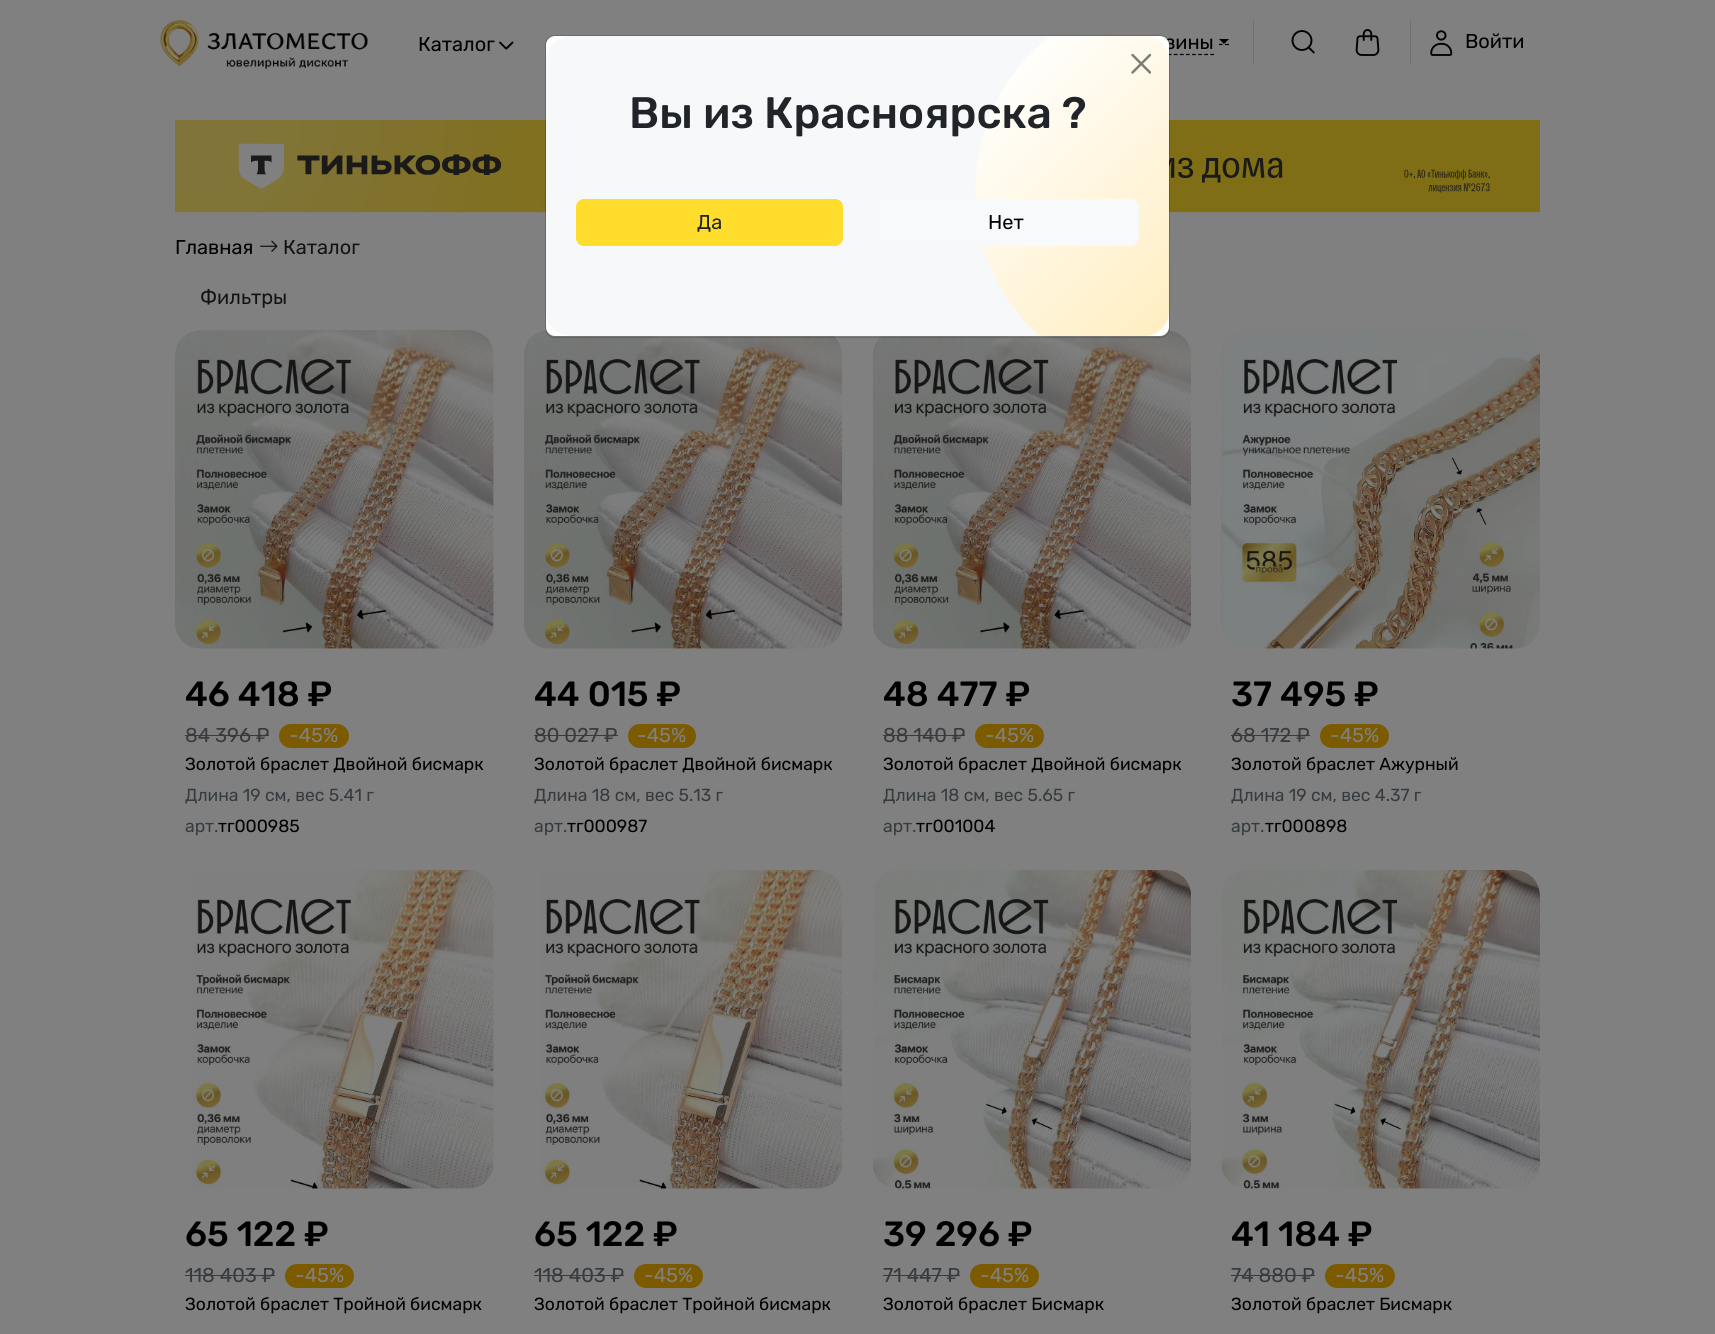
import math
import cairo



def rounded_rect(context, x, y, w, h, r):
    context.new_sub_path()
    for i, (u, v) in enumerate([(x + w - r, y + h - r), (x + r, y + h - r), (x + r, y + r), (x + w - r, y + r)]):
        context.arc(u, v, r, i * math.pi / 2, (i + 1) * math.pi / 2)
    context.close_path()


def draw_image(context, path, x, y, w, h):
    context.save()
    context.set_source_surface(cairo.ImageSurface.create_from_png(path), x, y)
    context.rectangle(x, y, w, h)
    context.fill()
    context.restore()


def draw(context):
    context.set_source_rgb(128 / 255, 128 / 255, 128 / 255)
    context.paint()
    draw_image(context, "images/1.png", 160, 20, 208, 49)
    context.new_path()
    context.move_to(500, 42.5)
    context.line_to(506, 48.5)
    context.line_to(506.5, 48.5)
    context.line_to(512.5, 42.5)
    context.set_source_rgb(0, 0, 0)
    context.set_line_width(1.9)
    context.set_line_cap(cairo.LineCap.ROUND)
    context.stroke()
    context.set_source_rgb(111 / 255, 113 / 255, 115 / 255)
    context.rectangle(1253, 20, 1, 45)
    context.fill()
    context.new_path()
    context.move_to(1119, 54.5)
    context.line_to(1214, 54.5)
    context.set_source_rgb(0, 0, 0)
    context.set_line_width(1.2)
    context.set_line_cap(cairo.LineCap.BUTT)
    context.set_dash([3.75, 2.34])
    context.stroke()
    context.new_path()
    context.move_to(1219, 44.5)
    context.line_to(1222.5, 44.5)
    context.move_to(1225, 44.5)
    context.line_to(1229, 44.5)
    context.set_dash([])
    context.stroke()
    context.new_path()
    context.move_to(1219, 39)
    context.line_to(1229, 39)
    context.line_to(1224, 44)
    context.close_path()
    context.fill()
    context.set_source_rgb(111 / 255, 113 / 255, 115 / 255)
    context.rectangle(1410, 20, 1, 45)
    context.fill()
    draw_image(context, "images/2.png", 1291, 30, 24, 24)
    draw_image(context, "images/3.png", 1355, 29, 25, 27)
    draw_image(context, "images/4.png", 1430, 30, 23, 26)
    draw_image(context, "images/6.png", 175, 120, 1365, 93)
    draw_image(context, "images/7.png", 260, 240, 18, 12)
    draw_image(context, "images/8.png", 175, 330, 319, 319)
    context.set_source_rgb(54 / 255, 59 / 255, 63 / 255)
    context.rectangle(185, 735, 84, 1)
    context.fill()
    context.set_source_rgb(124 / 255, 90 / 255, 0)
    rounded_rect(context, 279, 724, 70, 24, 12)
    context.fill()
    draw_image(context, "images/9.png", 524, 330, 319, 319)
    context.set_source_rgb(54 / 255, 59 / 255, 63 / 255)
    context.rectangle(534, 735, 84, 1)
    context.fill()
    context.set_source_rgb(124 / 255, 90 / 255, 0)
    rounded_rect(context, 628, 724, 68, 24, 12)
    context.fill()
    draw_image(context, "images/10.png", 872, 330, 319, 319)
    context.set_source_rgb(54 / 255, 59 / 255, 63 / 255)
    context.rectangle(883, 735, 82, 1)
    context.fill()
    context.set_source_rgb(124 / 255, 90 / 255, 0)
    rounded_rect(context, 975, 724, 69, 24, 12)
    context.fill()
    draw_image(context, "images/11.png", 1221, 330, 319, 319)
    context.set_source_rgb(54 / 255, 59 / 255, 63 / 255)
    context.rectangle(1231, 735, 79, 1)
    context.fill()
    context.set_source_rgb(124 / 255, 90 / 255, 0)
    rounded_rect(context, 1320, 724, 69, 24, 12)
    context.fill()
    draw_image(context, "images/12.png", 192, 870, 302, 319)
    context.set_source_rgb(54 / 255, 59 / 255, 63 / 255)
    context.rectangle(185, 1275, 90, 1)
    context.fill()
    context.set_source_rgb(124 / 255, 90 / 255, 0)
    rounded_rect(context, 285, 1264, 69, 24, 12)
    context.fill()
    draw_image(context, "images/13.png", 541, 870, 302, 319)
    context.set_source_rgb(54 / 255, 59 / 255, 63 / 255)
    context.rectangle(534, 1275, 90, 1)
    context.fill()
    context.set_source_rgb(124 / 255, 90 / 255, 0)
    rounded_rect(context, 634, 1264, 69, 24, 12)
    context.fill()
    draw_image(context, "images/14.png", 873, 870, 318, 319)
    context.set_source_rgb(54 / 255, 59 / 255, 63 / 255)
    context.rectangle(883, 1275, 77, 1)
    context.fill()
    context.set_source_rgb(124 / 255, 90 / 255, 0)
    rounded_rect(context, 970, 1264, 69, 24, 12)
    context.fill()
    draw_image(context, "images/15.png", 1221, 870, 319, 319)
    context.set_source_rgb(54 / 255, 59 / 255, 63 / 255)
    context.rectangle(1231, 1275, 84, 1)
    context.fill()
    context.set_source_rgb(124 / 255, 90 / 255, 0)
    rounded_rect(context, 1325, 1264, 70, 24, 12)
    context.fill()
    context.select_font_face("Rubik")
    context.set_font_size(20)
    context.set_source_rgb(0, 0, 0)
    context.move_to(418, 51)
    context.show_text("Каталог")
    context.move_to(1165, 49)
    context.show_text("зины")
    context.move_to(1465, 48)
    context.show_text("Войти")
    context.set_source_rgb(1, 1, 1)
    rounded_rect(context, 546, 36, 623, 300, 9)
    context.fill()
    rounded_rect(context, 545.5, 35.5, 624, 302, 9.5)
    context.set_source_rgba(0, 0, 0, 0.18)
    context.set_line_width(1)
    context.stroke()
    context.set_source_rgb(246 / 255, 248 / 255, 250 / 255)
    rounded_rect(context, 546, 36, 623, 300, 25)
    context.fill()
    gradient = cairo.LinearGradient(1296, 375, 990, 69)
    gradient.add_color_stop_rgba(0, 1, 231 / 255, 169 / 255, 1)
    gradient.add_color_stop_rgba(1, 1, 1, 1, 1)
    context.set_source(gradient)
    context.new_path()
    context.move_to(1039, 336)
    context.curve_to(950, 254, 955, 111, 1050, 36)
    context.line_to(1144, 36)
    context.curve_to(1158, 36, 1169, 47, 1169, 61)
    context.line_to(1169, 311)
    context.curve_to(1169, 325, 1158, 336, 1144, 336)
    context.close_path()
    context.fill()
    draw_image(context, "images/5.png", 1131, 54, 20, 20)
    context.select_font_face("Rubik Medium")
    context.set_font_size(44)
    context.set_source_rgb(33 / 255, 37 / 255, 41 / 255)
    context.move_to(629, 128)
    context.show_text("Вы из Красноярска ?")
    context.set_source_rgb(1, 221 / 255, 45 / 255)
    rounded_rect(context, 576, 199, 267, 47, 8)
    context.fill()
    context.select_font_face("Rubik")
    context.set_font_size(20)
    context.set_source_rgb(33 / 255, 37 / 255, 41 / 255)
    context.move_to(697, 229)
    context.show_text("Да")
    context.set_source_rgb(248 / 255, 249 / 255, 250 / 255)
    rounded_rect(context, 873.5, 199.5, 265, 46, 7.5)
    context.fill_preserve()
    context.stroke()
    context.set_source_rgb(0, 0, 0)
    context.move_to(988, 229)
    context.show_text("Нет")
    context.move_to(175, 254)
    context.show_text("Главная")
    context.set_source_rgb(17 / 255, 19 / 255, 21 / 255)
    context.move_to(283, 254)
    context.show_text("Каталог")
    context.move_to(200, 304)
    context.show_text("Фильтры")
    context.select_font_face("Rubik Medium")
    context.set_font_size(35)
    context.set_source_rgb(0, 0, 0)
    context.move_to(185, 706)
    context.show_text("46 418 ₽")
    context.select_font_face("Rubik")
    context.set_font_size(20)
    context.set_source_rgb(54 / 255, 59 / 255, 63 / 255)
    context.move_to(185, 742)
    context.show_text("84 396 ₽")
    context.set_source_rgb(128 / 255, 128 / 255, 128 / 255)
    context.move_to(289, 742)
    context.show_text("-45%")
    context.set_font_size(17.5)
    context.set_source_rgb(0, 0, 0)
    context.move_to(185, 770)
    context.show_text("Золотой браслет Двойной бисмарк")
    context.set_source_rgb(54 / 255, 59 / 255, 63 / 255)
    context.move_to(185, 801)
    context.show_text("Длина 19 см, вес 5.41 г")
    context.move_to(185, 832)
    context.show_text("арт.")
    context.set_source_rgb(0, 0, 0)
    context.move_to(218, 832)
    context.show_text("тг000985")
    context.select_font_face("Rubik Medium")
    context.set_font_size(35)
    context.move_to(534, 706)
    context.show_text("44 015 ₽")
    context.select_font_face("Rubik")
    context.set_font_size(20)
    context.set_source_rgb(54 / 255, 59 / 255, 63 / 255)
    context.move_to(534, 742)
    context.show_text("80 027 ₽")
    context.set_source_rgb(128 / 255, 128 / 255, 128 / 255)
    context.move_to(637, 742)
    context.show_text("-45%")
    context.set_font_size(17.5)
    context.set_source_rgb(0, 0, 0)
    context.move_to(534, 770)
    context.show_text("Золотой браслет Двойной бисмарк")
    context.set_source_rgb(54 / 255, 59 / 255, 63 / 255)
    context.move_to(534, 801)
    context.show_text("Длина 18 см, вес 5.13 г")
    context.move_to(534, 832)
    context.show_text("арт.")
    context.set_source_rgb(0, 0, 0)
    context.move_to(567, 832)
    context.show_text("тг000987")
    context.select_font_face("Rubik Medium")
    context.set_font_size(35)
    context.move_to(883, 706)
    context.show_text("48 477 ₽")
    context.select_font_face("Rubik")
    context.set_font_size(20)
    context.set_source_rgb(54 / 255, 59 / 255, 63 / 255)
    context.move_to(883, 742)
    context.show_text("88 140 ₽")
    context.set_source_rgb(128 / 255, 128 / 255, 128 / 255)
    context.move_to(985, 742)
    context.show_text("-45%")
    context.set_font_size(17.5)
    context.set_source_rgb(0, 0, 0)
    context.move_to(883, 770)
    context.show_text("Золотой браслет Двойной бисмарк")
    context.set_source_rgb(54 / 255, 59 / 255, 63 / 255)
    context.move_to(883, 801)
    context.show_text("Длина 18 см, вес 5.65 г")
    context.move_to(883, 832)
    context.show_text("арт.")
    context.set_source_rgb(0, 0, 0)
    context.move_to(916, 832)
    context.show_text("тг001004")
    context.select_font_face("Rubik Medium")
    context.set_font_size(35)
    context.move_to(1231, 706)
    context.show_text("37 495 ₽")
    context.select_font_face("Rubik")
    context.set_font_size(20)
    context.set_source_rgb(54 / 255, 59 / 255, 63 / 255)
    context.move_to(1231, 742)
    context.show_text("68 172 ₽")
    context.set_source_rgb(128 / 255, 128 / 255, 128 / 255)
    context.move_to(1330, 742)
    context.show_text("-45%")
    context.set_font_size(17.5)
    context.set_source_rgb(0, 0, 0)
    context.move_to(1231, 770)
    context.show_text("Золотой браслет Ажурный")
    context.set_source_rgb(54 / 255, 59 / 255, 63 / 255)
    context.move_to(1231, 801)
    context.show_text("Длина 19 см, вес 4.37 г")
    context.move_to(1231, 832)
    context.show_text("арт.")
    context.set_source_rgb(0, 0, 0)
    context.move_to(1265, 832)
    context.show_text("тг000898")
    context.select_font_face("Rubik Medium")
    context.set_font_size(35)
    context.move_to(185, 1246)
    context.show_text("65 122 ₽")
    context.select_font_face("Rubik")
    context.set_font_size(20)
    context.set_source_rgb(54 / 255, 59 / 255, 63 / 255)
    context.move_to(185, 1282)
    context.show_text("118 403 ₽")
    context.set_source_rgb(128 / 255, 128 / 255, 128 / 255)
    context.move_to(295, 1282)
    context.show_text("-45%")
    context.set_font_size(17.5)
    context.set_source_rgb(0, 0, 0)
    context.move_to(185, 1310)
    context.show_text("Золотой браслет Тройной бисмарк")
    context.select_font_face("Rubik Medium")
    context.set_font_size(35)
    context.move_to(534, 1246)
    context.show_text("65 122 ₽")
    context.select_font_face("Rubik")
    context.set_font_size(20)
    context.set_source_rgb(54 / 255, 59 / 255, 63 / 255)
    context.move_to(534, 1282)
    context.show_text("118 403 ₽")
    context.set_source_rgb(128 / 255, 128 / 255, 128 / 255)
    context.move_to(644, 1282)
    context.show_text("-45%")
    context.set_font_size(17.5)
    context.set_source_rgb(0, 0, 0)
    context.move_to(534, 1310)
    context.show_text("Золотой браслет Тройной бисмарк")
    context.select_font_face("Rubik Medium")
    context.set_font_size(35)
    context.move_to(883, 1246)
    context.show_text("39 296 ₽")
    context.select_font_face("Rubik")
    context.set_font_size(20)
    context.set_source_rgb(54 / 255, 59 / 255, 63 / 255)
    context.move_to(883, 1282)
    context.show_text("71 447 ₽")
    context.set_source_rgb(128 / 255, 128 / 255, 128 / 255)
    context.move_to(980, 1282)
    context.show_text("-45%")
    context.set_font_size(17.5)
    context.set_source_rgb(0, 0, 0)
    context.move_to(883, 1310)
    context.show_text("Золотой браслет Бисмарк")
    context.select_font_face("Rubik Medium")
    context.set_font_size(35)
    context.move_to(1231, 1246)
    context.show_text("41 184 ₽")
    context.select_font_face("Rubik")
    context.set_font_size(20)
    context.set_source_rgb(54 / 255, 59 / 255, 63 / 255)
    context.move_to(1231, 1282)
    context.show_text("74 880 ₽")
    context.set_source_rgb(128 / 255, 128 / 255, 128 / 255)
    context.move_to(1335, 1282)
    context.show_text("-45%")
    context.set_font_size(17.5)
    context.set_source_rgb(0, 0, 0)
    context.move_to(1231, 1310)
    context.show_text("Золотой браслет Бисмарк")


surface = cairo.ImageSurface(cairo.Format.RGB24, 1715, 1334)
context = cairo.Context(surface)
options = cairo.FontOptions()
options.set_hint_metrics(cairo.HintMetrics.OFF)
options.set_hint_style(cairo.HintStyle.NONE)
context.set_font_options(options)
context.set_miter_limit(4)
draw(context)
surface.write_to_png("out.png")
